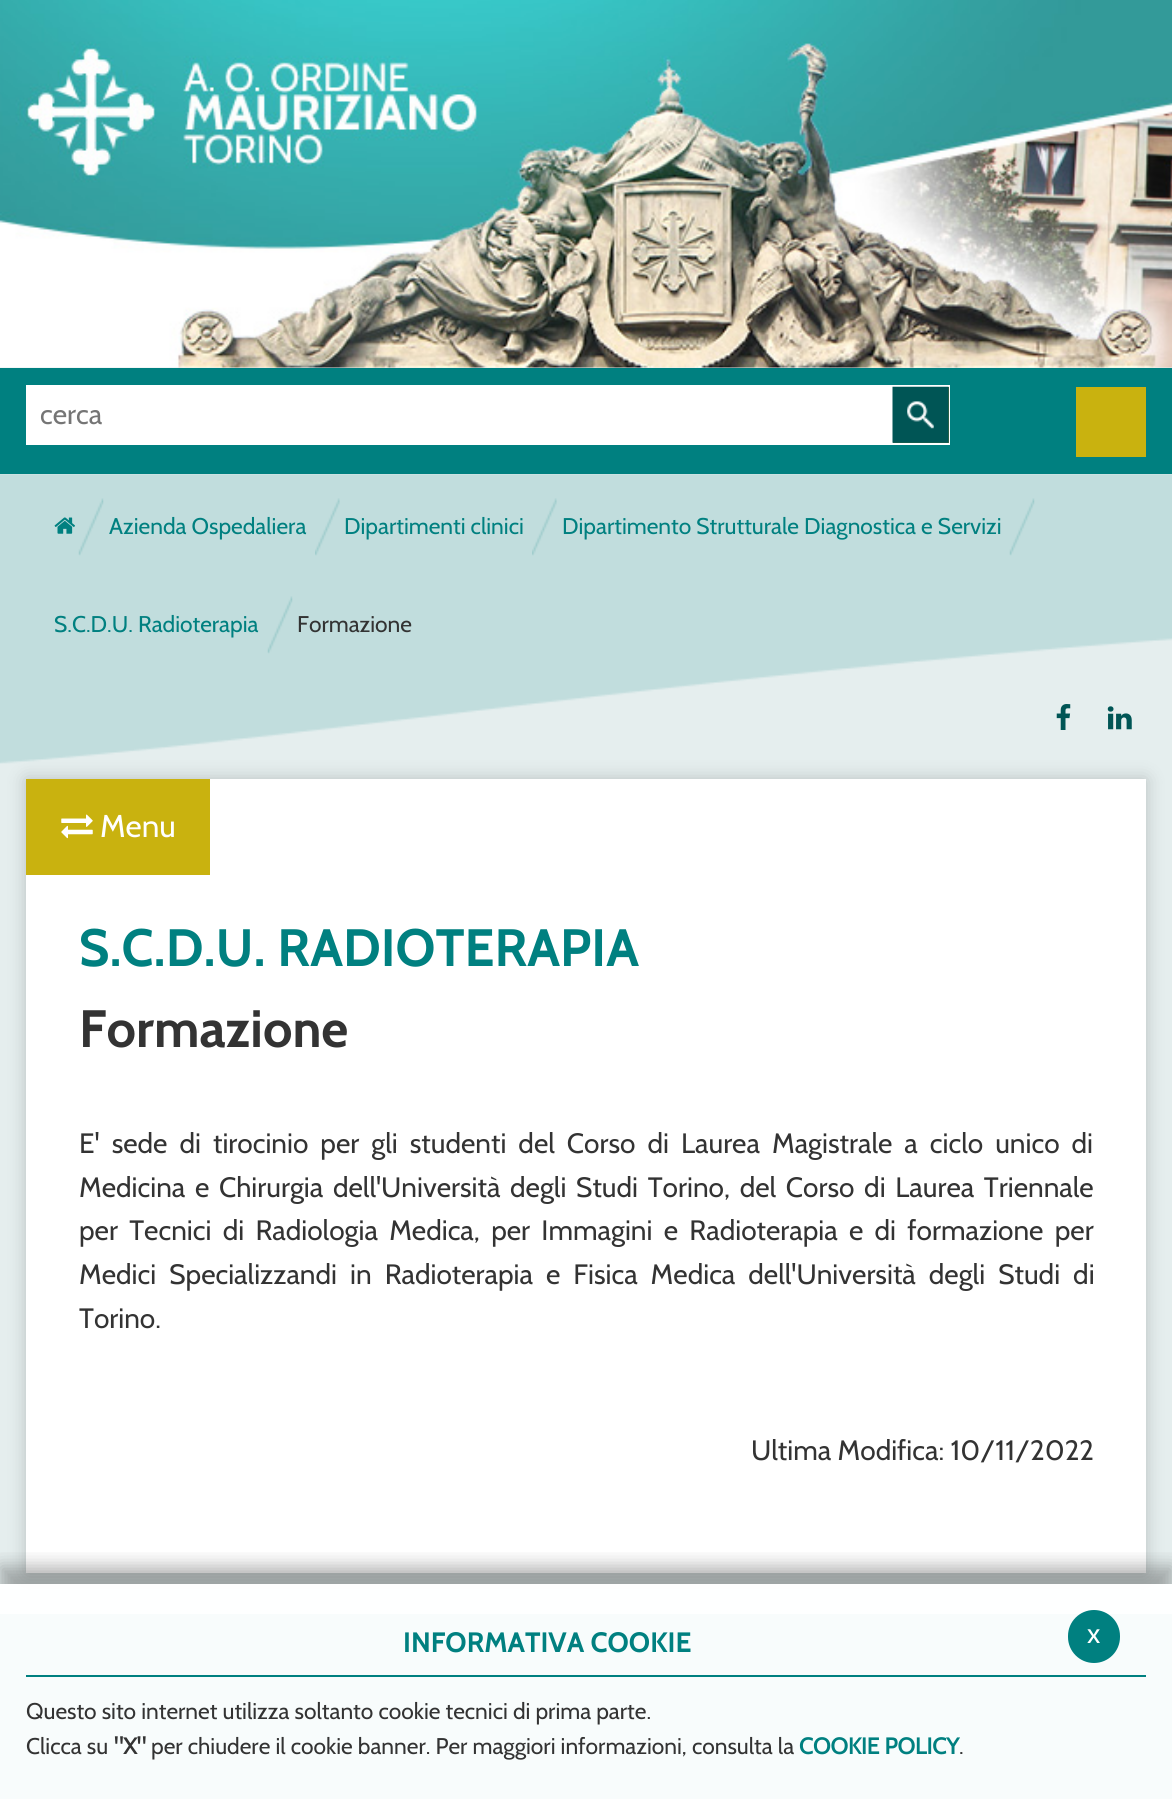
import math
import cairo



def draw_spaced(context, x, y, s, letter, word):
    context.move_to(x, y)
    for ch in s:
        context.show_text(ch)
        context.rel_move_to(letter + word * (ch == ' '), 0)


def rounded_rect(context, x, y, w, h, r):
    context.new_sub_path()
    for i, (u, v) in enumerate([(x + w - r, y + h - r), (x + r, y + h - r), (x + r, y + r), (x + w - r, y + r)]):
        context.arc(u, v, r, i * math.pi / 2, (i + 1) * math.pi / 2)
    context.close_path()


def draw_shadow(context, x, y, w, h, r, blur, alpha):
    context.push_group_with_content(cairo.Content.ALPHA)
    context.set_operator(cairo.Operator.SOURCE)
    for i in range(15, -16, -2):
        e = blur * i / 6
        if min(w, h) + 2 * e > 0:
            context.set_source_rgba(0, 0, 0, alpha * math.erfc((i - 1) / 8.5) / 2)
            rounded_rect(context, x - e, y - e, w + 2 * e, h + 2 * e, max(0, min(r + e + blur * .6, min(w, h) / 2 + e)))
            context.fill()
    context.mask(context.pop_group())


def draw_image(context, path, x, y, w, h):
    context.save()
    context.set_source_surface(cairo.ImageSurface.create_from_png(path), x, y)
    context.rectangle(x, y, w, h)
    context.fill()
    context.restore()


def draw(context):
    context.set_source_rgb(229 / 255, 238 / 255, 238 / 255)
    context.paint()
    draw_image(context, "images/1.png", 0, 0, 1172, 368)
    context.set_source_rgb(0, 128 / 255, 128 / 255)
    context.rectangle(0, 368, 1172, 106)
    context.fill()
    context.set_source_rgb(1, 1, 1)
    context.rectangle(26, 385, 924, 60)
    context.fill()
    context.set_source_rgb(87 / 255, 110 / 255, 60 / 255)
    context.rectangle(893, 387, 56, 56)
    context.fill()
    draw_image(context, "images/2.png", 892, 386, 57, 57)
    context.set_source_rgb(201 / 255, 178 / 255, 15 / 255)
    context.rectangle(1076, 387, 70, 70)
    context.fill()
    draw_image(context, "images/3.png", 0, 474, 1172, 290)
    draw_image(context, "images/4.png", 54, 517, 21, 17)
    draw_image(context, "images/5.png", 78, 498, 26, 58)
    draw_image(context, "images/6.png", 315, 498, 25, 58)
    draw_image(context, "images/7.png", 532, 498, 25, 58)
    draw_image(context, "images/8.png", 1009, 498, 26, 58)
    draw_image(context, "images/9.png", 267, 596, 26, 58)
    draw_image(context, "images/10.png", 1056, 704, 15, 26)
    draw_image(context, "images/11.png", 1107, 706, 25, 24)
    context.set_source_rgb(0, 0, 0)
    draw_shadow(context, 26, 779, 1120, 794, 0, 9, 0.2)
    context.set_source_rgb(1, 1, 1)
    context.rectangle(26, 779, 1120, 794)
    context.fill()
    context.set_source_rgb(201 / 255, 178 / 255, 15 / 255)
    context.rectangle(26, 779, 184, 96)
    context.fill()
    draw_image(context, "images/12.png", 61, 814, 32, 25)
    context.set_source_rgb(0, 128 / 255, 128 / 255)
    context.rectangle(0, 1614, 1172, 185)
    context.fill()
    context.save()
    context.rectangle(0, 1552, 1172, 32)
    context.clip()
    context.set_source_rgb(0, 0, 0)
    draw_shadow(context, 0, 1566, 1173, 216, 0, 9, 0.3)
    context.restore()
    context.set_source_rgba(1, 1, 1, 0.97)
    context.rectangle(0, 1584, 1172, 215)
    context.fill()
    context.set_source_rgb(0, 128 / 255, 128 / 255)
    context.rectangle(26, 1675, 1120, 2)
    context.fill()
    rounded_rect(context, 1068, 1610, 52, 53, 26)
    context.fill()
    context.select_font_face("Cabin")
    context.set_font_size(28)
    context.set_source_rgb(117 / 255, 117 / 255, 117 / 255)
    context.move_to(40, 424)
    context.show_text("cerca")
    context.set_font_size(22.75)
    context.set_source_rgb(0, 128 / 255, 128 / 255)
    context.move_to(109, 534)
    context.show_text("Azienda Ospedaliera")
    context.move_to(344, 534)
    context.show_text("Dipartimenti clinici")
    context.move_to(562, 534)
    context.show_text("Dipartimento Strutturale Diagnostica e Servizi")
    context.move_to(54, 632)
    context.show_text("S.C.D.U. Radioterapia")
    context.set_source_rgb(51 / 255, 51 / 255, 51 / 255)
    context.move_to(297, 632)
    context.show_text("Formazione")
    context.set_font_size(31.5)
    context.set_source_rgb(1, 1, 1)
    context.move_to(100, 837)
    context.show_text("Menu")
    context.select_font_face("Cabin", cairo.FontSlant.NORMAL, cairo.FontWeight.BOLD)
    context.set_font_size(52.5)
    context.set_source_rgb(0, 128 / 255, 128 / 255)
    context.move_to(79, 966)
    context.show_text("S.C.D.U. RADIOTERAPIA")
    context.set_source_rgb(51 / 255, 51 / 255, 51 / 255)
    context.move_to(79, 1047)
    context.show_text("Formazione")
    context.select_font_face("Cabin")
    context.set_font_size(28)
    draw_spaced(context, 79, 1153, "E' sede di tirocinio per gli studenti del Corso di Laurea Magistrale a ciclo unico di", 0, 5.75)
    draw_spaced(context, 79, 1197, "Medicina e Chirurgia dell'Università degli Studi Torino, del Corso di Laurea Triennale", 0, 3.4)
    draw_spaced(context, 79, 1240, "per Tecnici di Radiologia Medica, per Immagini e Radioterapia e di formazione per", 0, 5)
    draw_spaced(context, 79, 1284, "Medici Specializzandi in Radioterapia e Fisica Medica dell'Università degli Studi di", 0, 6.75)
    context.move_to(79, 1328)
    context.show_text("Torino.")
    context.move_to(751, 1460)
    context.show_text("Ultima Modifica: 10/11/2022")
    context.select_font_face("Cabin", cairo.FontSlant.NORMAL, cairo.FontWeight.BOLD)
    context.set_source_rgb(0, 128 / 255, 128 / 255)
    context.move_to(403, 1652)
    context.show_text("INFORMATIVA COOKIE")
    context.select_font_face("Cabin")
    context.set_font_size(22.75)
    context.set_source_rgb(51 / 255, 51 / 255, 51 / 255)
    context.move_to(26, 1719)
    context.show_text("Questo sito internet utilizza soltanto cookie tecnici di prima parte.")
    context.move_to(26, 1754)
    context.show_text("Clicca su")
    context.select_font_face("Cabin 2", cairo.FontSlant.NORMAL, cairo.FontWeight.BOLD)
    context.move_to(114, 1754)
    context.show_text("\"X\"")
    context.select_font_face("Cabin")
    context.move_to(151, 1754)
    context.show_text("per chiudere il cookie banner. Per maggiori informazioni, consulta la")
    context.select_font_face("Cabin 2", cairo.FontSlant.NORMAL, cairo.FontWeight.BOLD)
    context.set_source_rgb(0, 128 / 255, 128 / 255)
    context.move_to(799, 1754)
    context.show_text("COOKIE POLICY")
    context.select_font_face("Cabin")
    context.set_source_rgb(51 / 255, 51 / 255, 51 / 255)
    context.move_to(959, 1754)
    context.show_text(".")
    context.set_font_size(28)
    context.set_source_rgb(1, 1, 1)
    context.move_to(1087, 1643)
    context.show_text("x")


surface = cairo.ImageSurface(cairo.Format.RGB24, 1172, 1799)
context = cairo.Context(surface)
options = cairo.FontOptions()
options.set_hint_metrics(cairo.HintMetrics.OFF)
options.set_hint_style(cairo.HintStyle.NONE)
context.set_font_options(options)
context.set_miter_limit(4)
draw(context)
surface.write_to_png("out.png")
